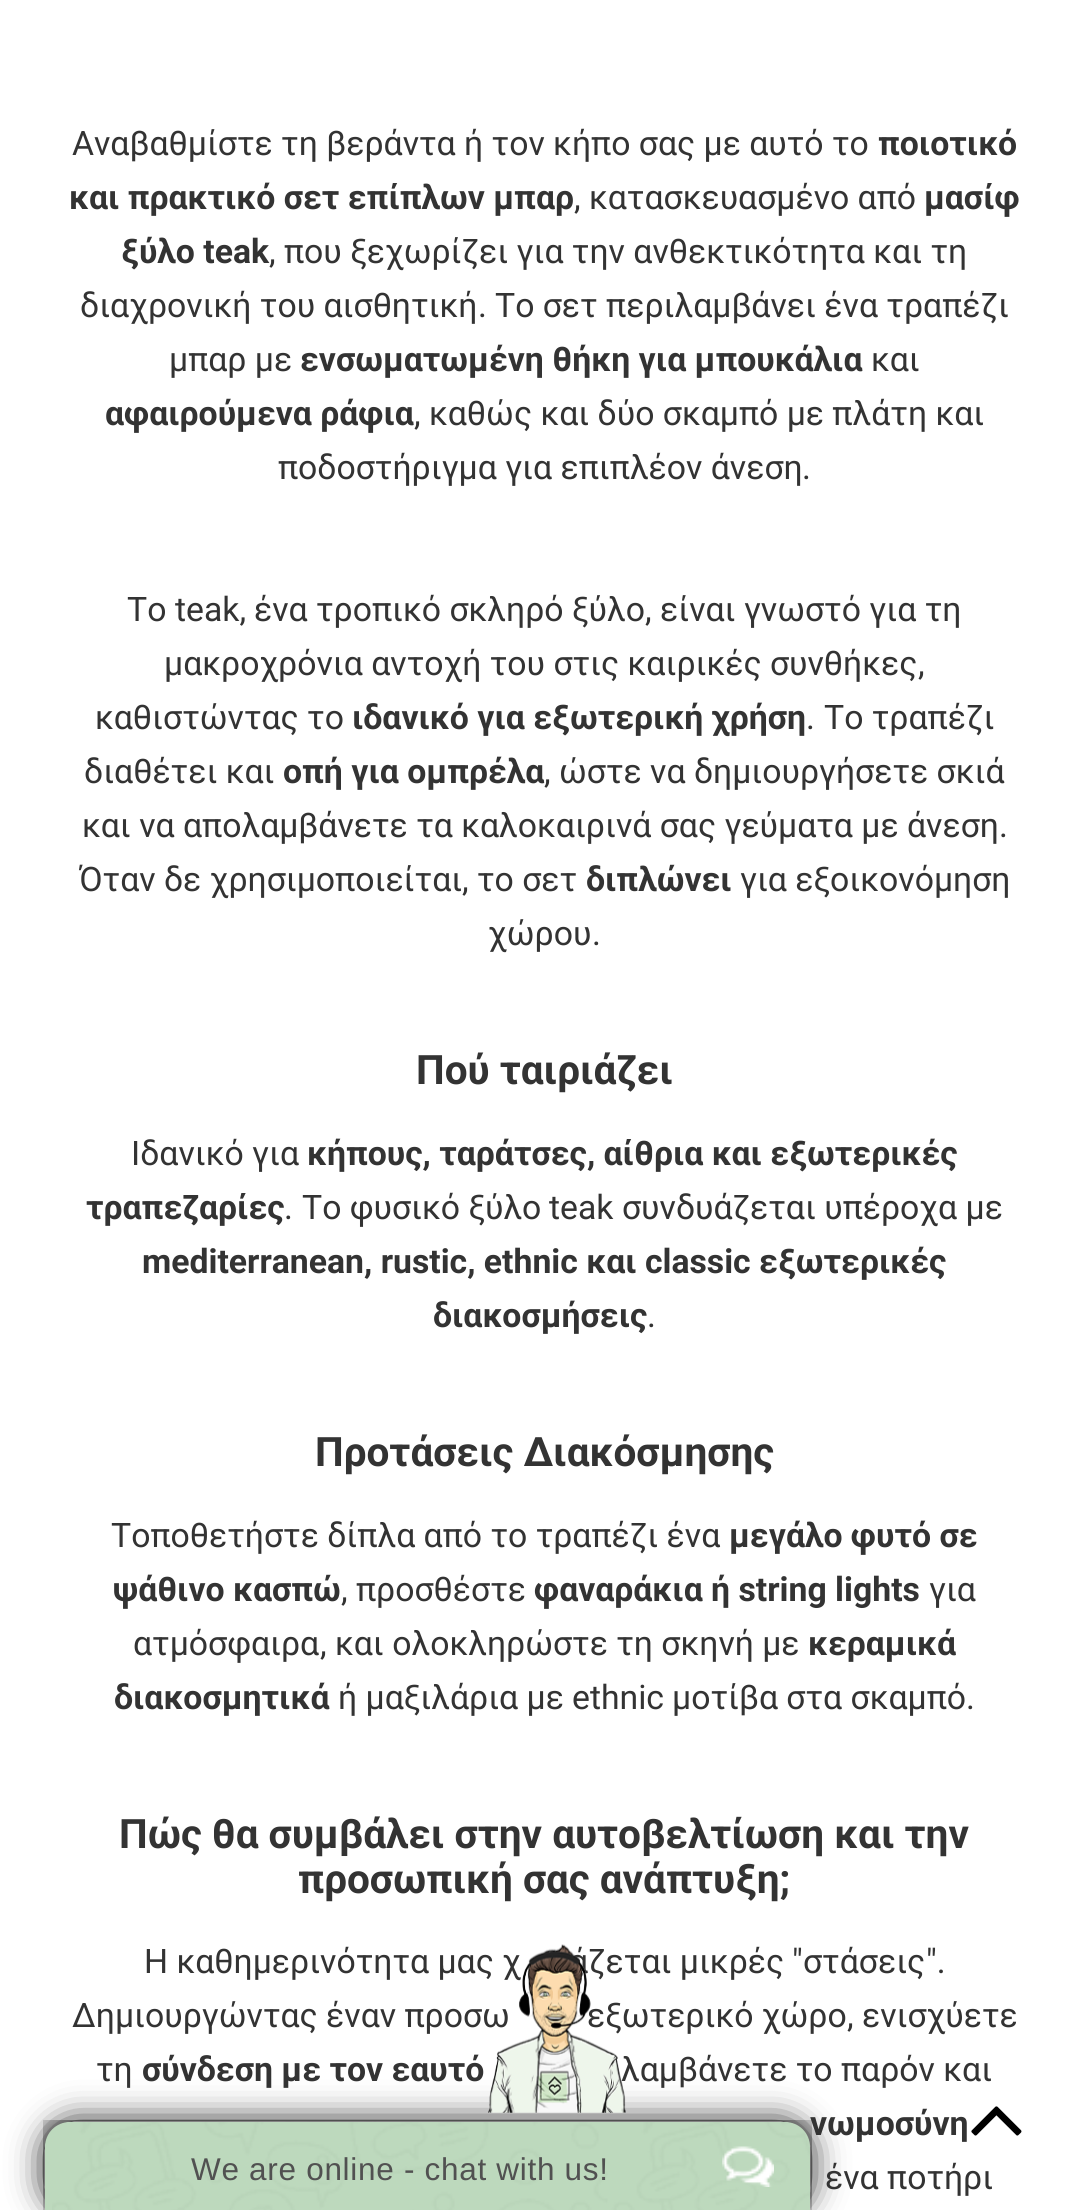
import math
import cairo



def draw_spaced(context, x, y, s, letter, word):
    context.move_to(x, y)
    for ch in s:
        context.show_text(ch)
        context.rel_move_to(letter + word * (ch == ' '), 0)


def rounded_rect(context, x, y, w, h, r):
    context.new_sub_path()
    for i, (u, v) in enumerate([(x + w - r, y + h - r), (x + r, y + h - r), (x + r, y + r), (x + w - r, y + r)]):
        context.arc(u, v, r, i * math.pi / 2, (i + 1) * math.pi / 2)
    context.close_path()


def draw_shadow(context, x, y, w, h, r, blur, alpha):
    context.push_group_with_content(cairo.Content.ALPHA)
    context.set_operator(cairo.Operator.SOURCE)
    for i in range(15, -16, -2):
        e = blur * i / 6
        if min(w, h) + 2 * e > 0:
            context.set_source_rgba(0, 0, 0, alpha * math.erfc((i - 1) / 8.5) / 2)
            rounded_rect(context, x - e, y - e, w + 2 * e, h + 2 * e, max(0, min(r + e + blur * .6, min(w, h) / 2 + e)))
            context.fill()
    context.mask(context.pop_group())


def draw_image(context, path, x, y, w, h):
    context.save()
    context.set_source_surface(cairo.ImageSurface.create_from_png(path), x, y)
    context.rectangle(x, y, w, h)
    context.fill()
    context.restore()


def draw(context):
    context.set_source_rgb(1, 1, 1)
    context.paint()
    draw_image(context, "images/1.png", 971, 2106, 51, 30)
    context.set_source_rgb(17 / 255, 17 / 255, 17 / 255)
    draw_shadow(context, 45, 2122, 765, 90, 29, 17, 1)
    context.select_font_face("Roboto")
    context.set_font_size(33.75)
    context.set_source_rgb(51 / 255, 51 / 255, 51 / 255)
    context.move_to(72, 155)
    context.show_text("Αναβαθμίστε τη βεράντα ή τον κήπο σας με αυτό το")
    context.select_font_face("Roboto", cairo.FontSlant.NORMAL, cairo.FontWeight.BOLD)
    context.move_to(878, 155)
    context.show_text("ποιοτικό")
    context.move_to(69, 209)
    context.show_text("και πρακτικό σετ επίπλων μπαρ")
    context.select_font_face("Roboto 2")
    context.move_to(574, 209)
    context.show_text(",")
    context.select_font_face("Roboto")
    context.move_to(589, 209)
    context.show_text("κατασκευασμένο από")
    context.select_font_face("Roboto", cairo.FontSlant.NORMAL, cairo.FontWeight.BOLD)
    context.move_to(924, 209)
    context.show_text("μασίφ")
    context.move_to(121, 263)
    context.show_text("ξύλο teak")
    context.select_font_face("Roboto 2")
    context.move_to(269, 263)
    context.show_text(",")
    context.select_font_face("Roboto")
    context.move_to(284, 263)
    context.show_text("που ξεχωρίζει για την ανθεκτικότητα και τη")
    context.move_to(80, 317)
    context.show_text("διαχρονική του αισθητική")
    context.select_font_face("Roboto 2")
    context.move_to(478, 317)
    context.show_text(".")
    context.select_font_face("Roboto")
    context.move_to(495, 317)
    context.show_text("Το σετ περιλαμβάνει ένα τραπέζι")
    context.move_to(169, 371)
    context.show_text("μπαρ με")
    context.select_font_face("Roboto", cairo.FontSlant.NORMAL, cairo.FontWeight.BOLD)
    context.move_to(300, 371)
    context.show_text("ενσωματωμένη θήκη για μπουκάλια")
    context.select_font_face("Roboto")
    context.move_to(871, 371)
    context.show_text("και")
    context.select_font_face("Roboto", cairo.FontSlant.NORMAL, cairo.FontWeight.BOLD)
    context.move_to(105, 425)
    context.show_text("αφαιρούμενα ράφια")
    context.select_font_face("Roboto 2")
    context.move_to(414, 425)
    context.show_text(",")
    context.select_font_face("Roboto")
    context.move_to(429, 425)
    context.show_text("καθώς και δύο σκαμπό με πλάτη και")
    context.move_to(278, 479)
    context.show_text("ποδοστήριγμα για επιπλέον άνεση")
    context.select_font_face("Roboto 2")
    context.move_to(802, 479)
    context.show_text(".")
    context.select_font_face("Roboto")
    context.move_to(127, 621)
    context.show_text("Το")
    context.select_font_face("Roboto 2")
    context.move_to(175, 621)
    context.show_text("teak,")
    context.select_font_face("Roboto")
    context.move_to(254, 621)
    context.show_text("ένα τροπικό σκληρό ξύλο")
    context.select_font_face("Roboto 2")
    context.move_to(645, 621)
    context.show_text(",")
    context.select_font_face("Roboto")
    context.move_to(660, 621)
    context.show_text("είναι γνωστό για τη")
    context.move_to(164, 675)
    context.show_text("μακροχρόνια αντοχή του στις καιρικές συνθήκες")
    context.select_font_face("Roboto 2")
    context.move_to(918, 675)
    context.show_text(",")
    context.select_font_face("Roboto")
    context.move_to(95, 729)
    context.show_text("καθιστώντας το")
    context.select_font_face("Roboto", cairo.FontSlant.NORMAL, cairo.FontWeight.BOLD)
    context.move_to(352, 729)
    context.show_text("ιδανικό για εξωτερική χρήση")
    context.select_font_face("Roboto 2")
    context.move_to(806, 729)
    context.show_text(".")
    context.select_font_face("Roboto")
    context.move_to(824, 729)
    context.show_text("Το τραπέζι")
    context.move_to(84, 783)
    context.show_text("διαθέτει και")
    context.select_font_face("Roboto", cairo.FontSlant.NORMAL, cairo.FontWeight.BOLD)
    context.move_to(283, 783)
    context.show_text("οπή για ομπρέλα")
    context.select_font_face("Roboto 2")
    context.move_to(544, 783)
    context.show_text(",")
    context.select_font_face("Roboto")
    context.move_to(559, 783)
    context.show_text("ώστε να δημιουργήσετε σκιά")
    context.move_to(82, 837)
    context.show_text("και να απολαμβάνετε τα καλοκαιρινά σας γεύματα με άνεση")
    context.select_font_face("Roboto 2")
    context.move_to(999, 837)
    context.show_text(".")
    context.select_font_face("Roboto")
    context.move_to(79, 891)
    context.show_text("Όταν δε χρησιμοποιείται")
    context.select_font_face("Roboto 2")
    context.move_to(462, 891)
    context.show_text(",")
    context.select_font_face("Roboto")
    context.move_to(477, 891)
    context.show_text("το σετ")
    context.select_font_face("Roboto", cairo.FontSlant.NORMAL, cairo.FontWeight.BOLD)
    context.move_to(586, 891)
    context.show_text("διπλώνει")
    context.select_font_face("Roboto")
    context.move_to(740, 891)
    context.show_text("για εξοικονόμηση")
    context.move_to(488, 945)
    context.show_text("χώρου")
    context.select_font_face("Roboto 2")
    context.move_to(592, 945)
    context.show_text(".")
    context.select_font_face("Roboto", cairo.FontSlant.NORMAL, cairo.FontWeight.BOLD)
    context.set_font_size(40.5)
    context.move_to(416, 1084)
    context.show_text("Πού ταιριάζει")
    context.select_font_face("Roboto")
    context.set_font_size(33.75)
    context.move_to(131, 1165)
    context.show_text("Ιδανικό για")
    context.select_font_face("Roboto", cairo.FontSlant.NORMAL, cairo.FontWeight.BOLD)
    context.move_to(307, 1165)
    context.show_text("κήπους, ταράτσες, αίθρια και εξωτερικές")
    context.move_to(86, 1219)
    context.show_text("τραπεζαρίες")
    context.select_font_face("Roboto 2")
    context.move_to(284, 1219)
    context.show_text(".")
    context.select_font_face("Roboto")
    context.move_to(302, 1219)
    context.show_text("Το φυσικό ξύλο")
    context.select_font_face("Roboto 2")
    context.move_to(549, 1219)
    context.show_text("teak")
    context.select_font_face("Roboto")
    context.move_to(622, 1219)
    context.show_text("συνδυάζεται υπέροχα με")
    context.select_font_face("Roboto", cairo.FontSlant.NORMAL, cairo.FontWeight.BOLD)
    context.move_to(142, 1273)
    context.show_text("mediterranean, rustic, ethnic και classic εξωτερικές")
    context.move_to(433, 1327)
    context.show_text("διακοσμήσεις")
    context.select_font_face("Roboto 2")
    context.move_to(647, 1327)
    context.show_text(".")
    context.select_font_face("Roboto", cairo.FontSlant.NORMAL, cairo.FontWeight.BOLD)
    context.set_font_size(40.5)
    context.move_to(315, 1466)
    context.show_text("Προτάσεις Διακόσμησης")
    context.select_font_face("Roboto")
    context.set_font_size(33.75)
    context.move_to(111, 1547)
    context.show_text("Τοποθετήστε δίπλα από το τραπέζι ένα")
    context.select_font_face("Roboto", cairo.FontSlant.NORMAL, cairo.FontWeight.BOLD)
    context.move_to(729, 1547)
    context.show_text("μεγάλο φυτό σε")
    context.move_to(113, 1601)
    context.show_text("ψάθινο κασπώ")
    context.select_font_face("Roboto 2")
    context.move_to(341, 1601)
    context.show_text(",")
    context.select_font_face("Roboto")
    context.move_to(356, 1601)
    context.show_text("προσθέστε")
    context.select_font_face("Roboto", cairo.FontSlant.NORMAL, cairo.FontWeight.BOLD)
    context.move_to(534, 1601)
    context.show_text("φαναράκια ή string lights")
    context.select_font_face("Roboto")
    context.move_to(929, 1601)
    context.show_text("για")
    context.move_to(133, 1655)
    context.show_text("ατμόσφαιρα")
    context.select_font_face("Roboto 2")
    context.move_to(320, 1655)
    context.show_text(",")
    context.select_font_face("Roboto")
    context.move_to(335, 1655)
    context.show_text("και ολοκληρώστε τη σκηνή με")
    context.select_font_face("Roboto", cairo.FontSlant.NORMAL, cairo.FontWeight.BOLD)
    context.move_to(808, 1655)
    context.show_text("κεραμικά")
    context.move_to(114, 1709)
    context.show_text("διακοσμητικά")
    context.select_font_face("Roboto")
    context.move_to(338, 1709)
    context.show_text("ή μαξιλάρια με")
    context.select_font_face("Roboto 2")
    context.move_to(572, 1709)
    context.show_text("ethnic")
    context.select_font_face("Roboto")
    context.move_to(672, 1709)
    context.show_text("μοτίβα στα σκαμπό")
    context.select_font_face("Roboto 2")
    context.move_to(966, 1709)
    context.show_text(".")
    context.select_font_face("Roboto", cairo.FontSlant.NORMAL, cairo.FontWeight.BOLD)
    context.set_font_size(40.5)
    context.move_to(119, 1848)
    context.show_text("Πώς θα συμβάλει στην αυτοβελτίωση και την")
    context.move_to(298, 1893)
    context.show_text("προσωπική σας ανάπτυξη;")
    context.select_font_face("Roboto")
    context.set_font_size(33.75)
    context.move_to(144, 1973)
    context.show_text("Η καθημερινότητα μας χ")
    context.move_to(569, 1973)
    context.show_text("άζεται μικρές")
    context.select_font_face("Roboto 2")
    context.move_to(792, 1973)
    context.show_text("\"")
    context.select_font_face("Roboto")
    context.move_to(803, 1973)
    context.show_text("στάσεις")
    context.select_font_face("Roboto 2")
    context.move_to(926, 1973)
    context.show_text("\".")
    context.select_font_face("Roboto")
    context.move_to(72, 2027)
    context.show_text("Δημιουργώντας έναν προσω")
    context.move_to(587, 2027)
    context.show_text("εξωτερικό χώρο")
    context.select_font_face("Roboto 2")
    context.move_to(847, 2027)
    context.show_text(",")
    context.select_font_face("Roboto")
    context.move_to(862, 2027)
    context.show_text("ενισχύετε")
    context.move_to(96, 2081)
    context.show_text("τη")
    context.select_font_face("Roboto", cairo.FontSlant.NORMAL, cairo.FontWeight.BOLD)
    context.move_to(142, 2081)
    context.show_text("σύνδεση με τον εαυτό")
    context.select_font_face("Roboto")
    context.move_to(621, 2081)
    context.show_text("λαμβάνετε το παρόν και")
    context.select_font_face("Roboto", cairo.FontSlant.NORMAL, cairo.FontWeight.BOLD)
    context.move_to(810, 2135)
    context.show_text("νωμοσύνη")
    context.select_font_face("Roboto")
    context.move_to(825, 2189)
    context.show_text("ένα ποτήρι")
    draw_image(context, "images/2.png", 488, 1944, 138, 169)
    draw_image(context, "images/3.png", 43, 2120, 769, 90)
    context.set_source_rgb(189 / 255, 217 / 255, 189 / 255)
    context.new_path()
    context.move_to(70, 2122)
    context.line_to(785, 2122)
    context.curve_to(799, 2122, 810, 2133, 810, 2147)
    context.line_to(810, 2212)
    context.line_to(45, 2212)
    context.line_to(45, 2147)
    context.curve_to(45, 2133, 56, 2122, 70, 2122)
    context.close_path()
    context.fill()
    draw_image(context, "images/4.png", 52, 2122, 758, 88)
    context.select_font_face("Liberation Sans")
    context.set_font_size(31.5)
    context.set_source_rgb(81 / 255, 81 / 255, 81 / 255)
    draw_spaced(context, 191, 2180, "We are online - chat with us!", 0.7, 0)
    draw_image(context, "images/5.png", 722, 2146, 52, 41)


surface = cairo.ImageSurface(cairo.Format.RGB24, 1089, 2210)
context = cairo.Context(surface)
options = cairo.FontOptions()
options.set_hint_metrics(cairo.HintMetrics.OFF)
options.set_hint_style(cairo.HintStyle.NONE)
context.set_font_options(options)
context.set_miter_limit(4)
draw(context)
surface.write_to_png("out.png")
